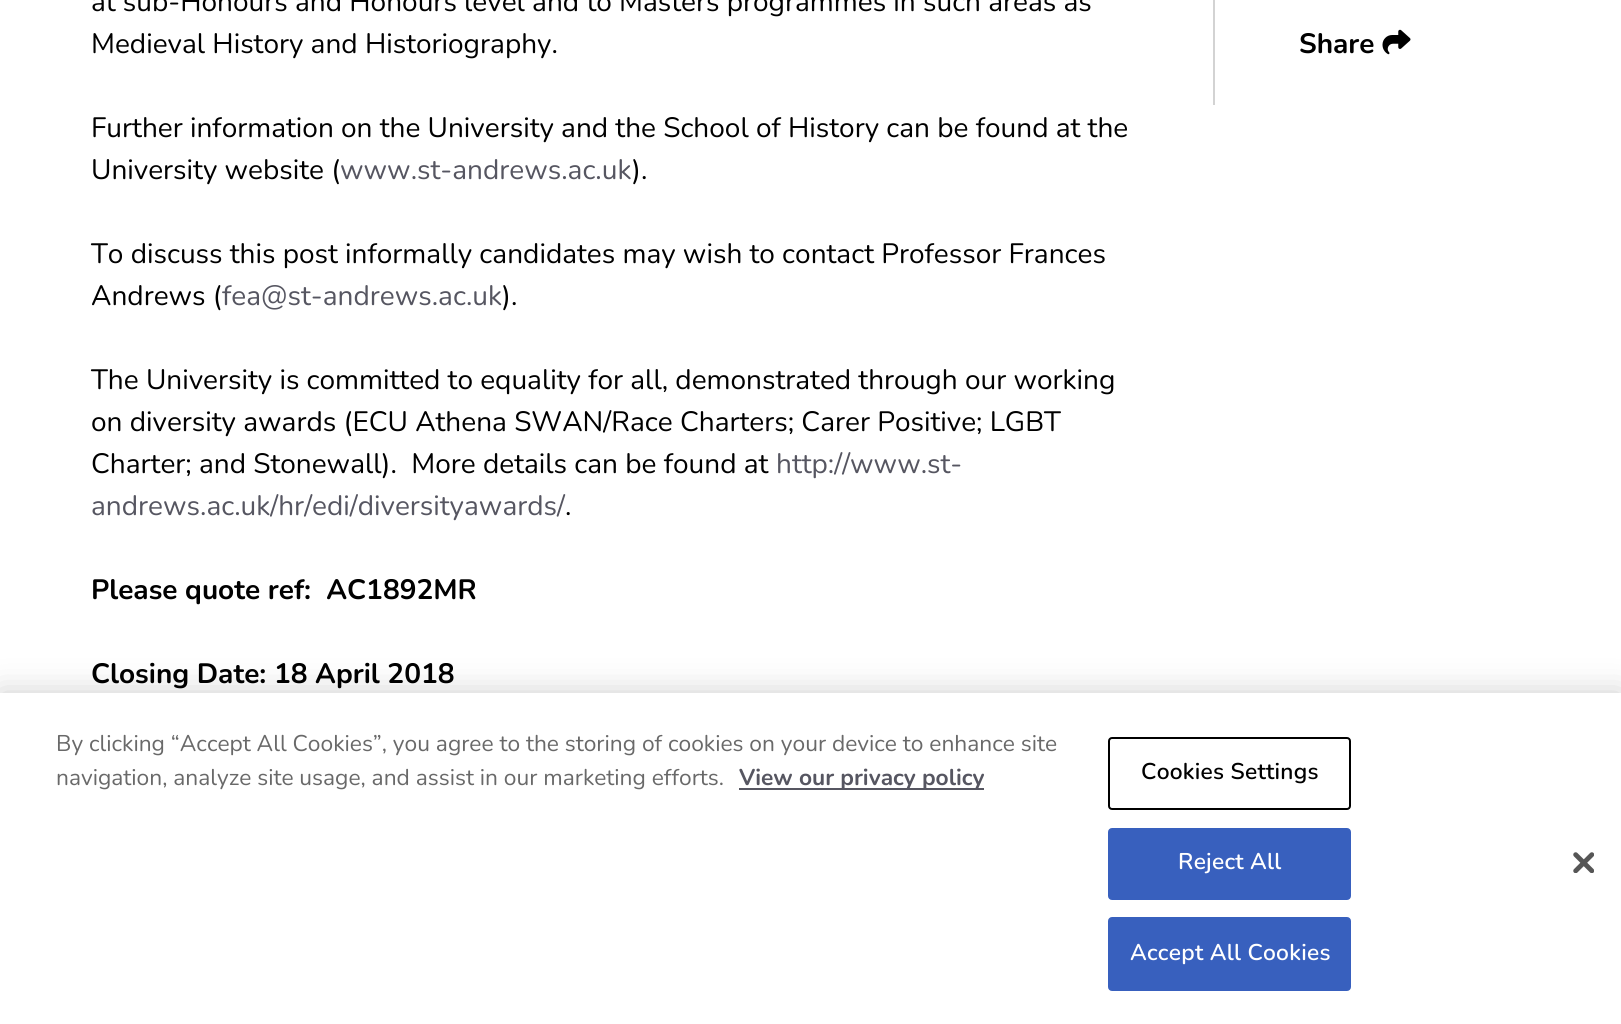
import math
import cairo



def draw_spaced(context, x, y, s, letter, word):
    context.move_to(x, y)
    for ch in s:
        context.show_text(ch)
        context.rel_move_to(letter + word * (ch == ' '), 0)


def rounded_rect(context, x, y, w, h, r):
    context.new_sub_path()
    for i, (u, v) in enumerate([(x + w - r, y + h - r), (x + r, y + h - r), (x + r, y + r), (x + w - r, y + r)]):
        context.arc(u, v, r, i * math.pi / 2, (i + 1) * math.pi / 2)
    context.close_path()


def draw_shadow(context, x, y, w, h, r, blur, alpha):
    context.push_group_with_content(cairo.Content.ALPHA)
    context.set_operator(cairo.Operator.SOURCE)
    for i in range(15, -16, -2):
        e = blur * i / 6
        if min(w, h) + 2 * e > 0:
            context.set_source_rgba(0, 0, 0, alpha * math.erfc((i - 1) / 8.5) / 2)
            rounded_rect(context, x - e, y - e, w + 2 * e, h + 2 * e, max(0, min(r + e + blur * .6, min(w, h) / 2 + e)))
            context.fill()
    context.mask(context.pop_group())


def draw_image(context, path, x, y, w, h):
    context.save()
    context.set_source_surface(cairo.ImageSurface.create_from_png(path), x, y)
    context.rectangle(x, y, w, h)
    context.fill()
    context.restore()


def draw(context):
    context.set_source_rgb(1, 1, 1)
    context.paint()
    context.set_source_rgb(211 / 255, 211 / 255, 211 / 255)
    context.rectangle(1213, 0, 2, 105)
    context.fill()
    draw_image(context, "images/1.png", 1382, 29, 29, 26)
    context.set_source_rgb(0, 0, 0)
    draw_shadow(context, 0, 693, 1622, 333, 0, 16, 0.2)
    context.set_source_rgb(1, 1, 1)
    context.rectangle(0, 693, 1621, 331)
    context.fill()
    context.set_source_rgb(86 / 255, 86 / 255, 97 / 255)
    context.rectangle(739, 788, 245, 2)
    context.fill()
    rounded_rect(context, 1109, 738, 241, 71, 3)
    context.set_source_rgb(0, 0, 0)
    context.stroke()
    context.set_source_rgb(56 / 255, 96 / 255, 190 / 255)
    rounded_rect(context, 1109, 829, 241, 70, 3)
    context.fill_preserve()
    context.stroke()
    rounded_rect(context, 1109, 918, 241, 72, 3)
    context.fill_preserve()
    context.stroke()
    draw_image(context, "images/2.png", 1573, 852, 21, 21)
    context.select_font_face("Nunito")
    context.set_font_size(28)
    context.set_source_rgb(0, 0, 0)
    context.move_to(91, 11)
    context.show_text("at sub-Honours and Honours level and to Masters programmes in such areas as")
    context.move_to(91, 53)
    context.show_text("Medieval History and Historiography.")
    context.move_to(91, 137)
    context.show_text("Further information on the University and the School of History can be found at the")
    context.move_to(91, 179)
    context.show_text("University website (")
    context.set_source_rgb(86 / 255, 86 / 255, 97 / 255)
    context.move_to(340, 179)
    context.show_text("www.st-andrews.ac.uk")
    context.set_source_rgb(0, 0, 0)
    context.move_to(632, 179)
    context.show_text(").")
    context.move_to(91, 263)
    context.show_text("To discuss this post informally candidates may wish to contact Professor Frances")
    context.move_to(91, 305)
    context.show_text("Andrews (")
    context.set_source_rgb(86 / 255, 86 / 255, 97 / 255)
    context.move_to(222, 305)
    context.show_text("fea@st-andrews.ac.uk")
    context.set_source_rgb(0, 0, 0)
    context.move_to(502, 305)
    context.show_text(").")
    context.move_to(91, 389)
    context.show_text("The University is committed to equality for all, demonstrated through our working")
    context.move_to(91, 431)
    context.show_text("on diversity awards (ECU Athena SWAN/Race Charters; Carer Positive; LGBT")
    context.move_to(91, 473)
    context.show_text("Charter; and Stonewall).  More details can be found at")
    context.set_source_rgb(86 / 255, 86 / 255, 97 / 255)
    context.move_to(776, 473)
    context.show_text("http://www.st-")
    context.move_to(91, 515)
    context.show_text("andrews.ac.uk/hr/edi/diversityawards/")
    context.set_source_rgb(0, 0, 0)
    context.move_to(565, 515)
    context.show_text(".")
    context.select_font_face("Nunito", cairo.FontSlant.NORMAL, cairo.FontWeight.BOLD)
    context.move_to(91, 599)
    context.show_text("Please quote ref:  AC1892MR")
    context.move_to(91, 683)
    context.show_text("Closing Date: 18 April 2018")
    context.move_to(1299, 53)
    context.show_text("Share")
    context.select_font_face("Nunito")
    context.set_font_size(22.75)
    context.set_source_rgb(105 / 255, 105 / 255, 105 / 255)
    context.move_to(56, 751)
    context.show_text("By clicking “Accept All Cookies”, you agree to the storing of cookies on your device to enhance site")
    context.move_to(56, 785)
    context.show_text("navigation, analyze site usage, and assist in our marketing efforts.")
    context.select_font_face("Nunito", cairo.FontSlant.NORMAL, cairo.FontWeight.BOLD)
    context.set_source_rgb(86 / 255, 86 / 255, 97 / 255)
    context.move_to(739, 785)
    context.show_text("View our privacy policy")
    context.select_font_face("Nunito SemiBold")
    context.set_source_rgb(0, 0, 0)
    draw_spaced(context, 1141, 779, "Cookies Settings", 0.25, 0)
    context.set_source_rgb(1, 1, 1)
    draw_spaced(context, 1178, 869, "Reject All", 0.25, 0)
    draw_spaced(context, 1130, 960, "Accept All Cookies", 0.25, 0)


surface = cairo.ImageSurface(cairo.Format.RGB24, 1621, 1024)
context = cairo.Context(surface)
options = cairo.FontOptions()
options.set_hint_metrics(cairo.HintMetrics.OFF)
options.set_hint_style(cairo.HintStyle.NONE)
context.set_font_options(options)
context.set_miter_limit(4)
draw(context)
surface.write_to_png("out.png")
